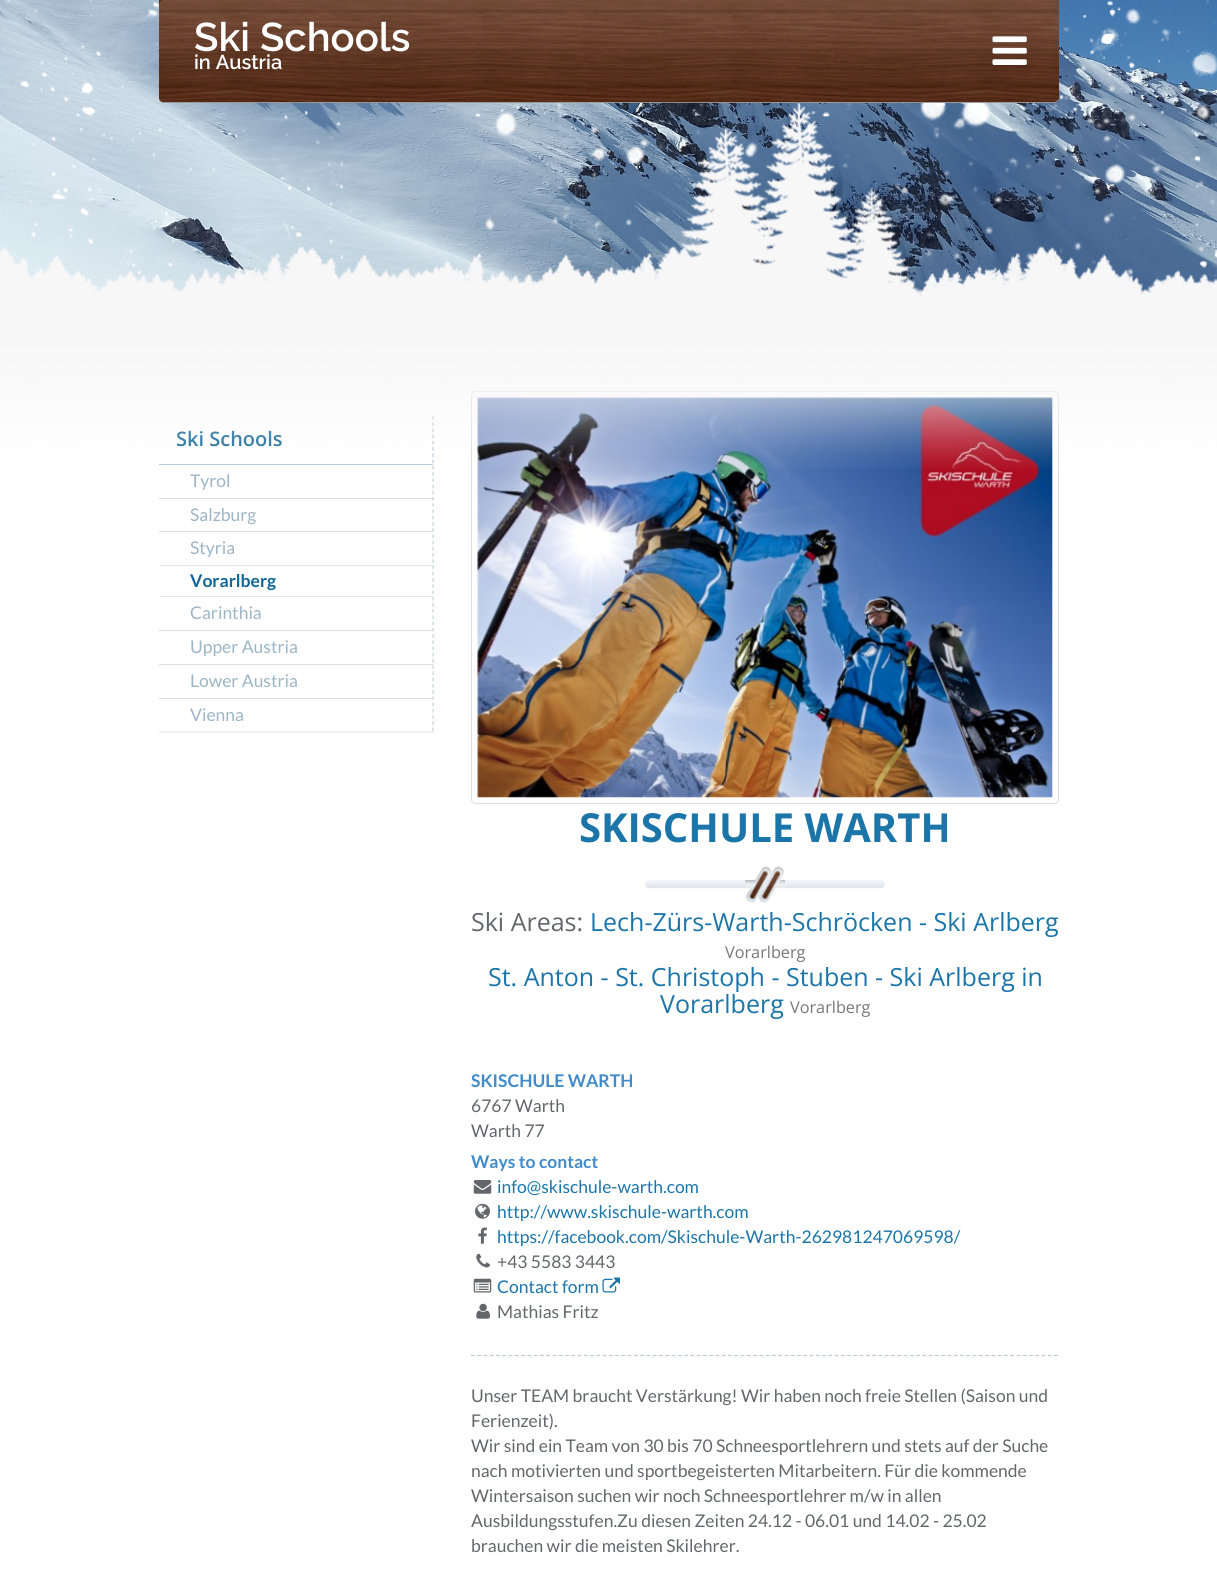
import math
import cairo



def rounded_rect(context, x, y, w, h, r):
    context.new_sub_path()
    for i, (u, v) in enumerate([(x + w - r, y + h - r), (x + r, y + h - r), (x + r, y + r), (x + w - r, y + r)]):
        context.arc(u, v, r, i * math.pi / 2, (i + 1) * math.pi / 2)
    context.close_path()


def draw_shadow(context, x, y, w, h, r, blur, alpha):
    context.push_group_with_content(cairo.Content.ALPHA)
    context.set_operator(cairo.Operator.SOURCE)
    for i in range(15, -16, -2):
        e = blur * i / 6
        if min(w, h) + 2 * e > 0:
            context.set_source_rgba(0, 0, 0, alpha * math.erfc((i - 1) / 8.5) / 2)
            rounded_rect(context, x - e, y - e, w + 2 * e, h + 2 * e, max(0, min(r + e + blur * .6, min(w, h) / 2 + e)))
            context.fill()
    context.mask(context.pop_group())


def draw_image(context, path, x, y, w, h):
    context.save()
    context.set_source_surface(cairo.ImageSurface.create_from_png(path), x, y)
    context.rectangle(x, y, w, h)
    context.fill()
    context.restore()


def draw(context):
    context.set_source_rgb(1, 1, 1)
    context.paint()
    draw_image(context, "images/1.png", 0, 0, 1217, 297)
    draw_image(context, "images/3.png", 151, 274, 402, 20)
    draw_image(context, "images/2.png", 0, 0, 1217, 297)
    gradient = cairo.LinearGradient(609, 0, 609, 103)
    gradient.add_color_stop_rgba(0, 245 / 255, 247 / 255, 250 / 255, 0.86)
    gradient.add_color_stop_rgba(1, 221 / 255, 230 / 255, 236 / 255, 0.86)
    context.set_source(gradient)
    rounded_rect(context, 159, 0, 900, 103, 5)
    context.fill()
    draw_image(context, "images/5.png", 159, 0, 900, 103)
    gradient = cairo.LinearGradient(609, 0, 609, 103)
    gradient.add_color_stop_rgba(0, 1, 1, 1, 0.15)
    gradient.add_color_stop_rgba(1, 0, 0, 0, 0.15)
    context.set_source(gradient)
    context.new_path()
    context.move_to(164, 0)
    context.line_to(1059, 0)
    context.line_to(1059, 103)
    context.line_to(164, 103)
    context.curve_to(161, 103, 159, 101, 159, 98)
    context.line_to(159, 5)
    context.curve_to(159, 2, 161, 0, 164, 0)
    context.close_path()
    context.fill()
    draw_image(context, "images/6.png", 992, 36, 35, 29)
    context.save()
    context.rectangle(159, 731, 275, 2)
    context.clip()
    context.set_source_rgb(0, 0, 0)
    draw_shadow(context, 159, 418, 275, 315, 0, 0.5, 0.05)
    context.restore()
    context.new_path()
    context.move_to(433, 416)
    context.line_to(433, 731)
    context.set_source_rgb(185 / 255, 202 / 255, 213 / 255)
    context.set_line_width(1.2)
    context.set_dash([3.75, 2.48])
    context.stroke()
    context.rectangle(159, 464, 274, 1)
    context.fill()
    context.set_source_rgba(1, 1, 1, 0.3)
    context.rectangle(432, 466, 1, 32)
    context.fill()
    context.set_source_rgb(221 / 255, 221 / 255, 221 / 255)
    context.rectangle(159, 498, 274, 1)
    context.fill()
    context.set_source_rgba(1, 1, 1, 0.3)
    context.rectangle(432, 499, 1, 32)
    context.fill()
    context.set_source_rgb(221 / 255, 221 / 255, 221 / 255)
    context.rectangle(159, 531, 274, 1)
    context.fill()
    context.set_source_rgba(1, 1, 1, 0.3)
    context.rectangle(432, 534, 1, 29)
    context.fill()
    context.set_source_rgb(221 / 255, 221 / 255, 221 / 255)
    context.rectangle(159, 565, 274, 1)
    context.fill()
    context.rectangle(159, 596, 274, 1)
    context.fill()
    context.set_source_rgba(1, 1, 1, 0.3)
    context.rectangle(159, 565, 274, 33)
    context.fill()
    context.rectangle(432, 598, 1, 32)
    context.fill()
    context.set_source_rgb(221 / 255, 221 / 255, 221 / 255)
    context.rectangle(159, 630, 274, 1)
    context.fill()
    context.set_source_rgba(1, 1, 1, 0.3)
    context.rectangle(432, 631, 1, 32)
    context.fill()
    context.set_source_rgb(221 / 255, 221 / 255, 221 / 255)
    context.rectangle(159, 664, 274, 1)
    context.fill()
    context.set_source_rgba(1, 1, 1, 0.3)
    context.rectangle(432, 665, 1, 33)
    context.fill()
    context.new_path()
    context.move_to(159, 698)
    context.line_to(433, 698)
    context.line_to(433, 727)
    context.curve_to(433, 729, 431, 731, 429, 731)
    context.line_to(163, 731)
    context.curve_to(161, 731, 159, 729, 159, 727)
    context.close_path()
    context.fill()
    context.set_source_rgb(221 / 255, 221 / 255, 221 / 255)
    context.rectangle(159, 698, 274, 1)
    context.fill()
    rounded_rect(context, 471.5, 391.5, 587, 412, 4.5)
    context.set_line_width(1)
    context.set_dash([])
    context.stroke()
    draw_image(context, "images/7.png", 477, 397, 576, 401)
    context.set_source_rgb(250 / 255, 250 / 255, 251 / 255)
    context.new_path()
    context.move_to(645, 884)
    context.curve_to(645, 887, 647, 889, 649, 889)
    context.line_to(881, 889)
    context.curve_to(883, 889, 885, 887, 885, 884)
    context.curve_to(885, 886, 883, 888, 881, 888)
    context.line_to(649, 888)
    context.curve_to(647, 888, 645, 886, 645, 884)
    context.close_path()
    context.fill()
    gradient = cairo.LinearGradient(765, 880, 765, 888)
    gradient.add_color_stop_rgba(0, 245 / 255, 247 / 255, 250 / 255, 1)
    gradient.add_color_stop_rgba(1, 221 / 255, 230 / 255, 236 / 255, 1)
    context.set_source(gradient)
    rounded_rect(context, 645, 880, 240, 8, 4)
    context.fill()
    draw_image(context, "images/8.png", 745, 866, 40, 37)
    draw_image(context, "images/9.png", 473, 1180, 19, 14)
    draw_image(context, "images/10.png", 475, 1203, 15, 16)
    draw_image(context, "images/11.png", 478, 1227, 9, 17)
    draw_image(context, "images/12.png", 476, 1253, 14, 15)
    draw_image(context, "images/13.png", 473, 1278, 19, 15)
    draw_image(context, "images/14.png", 602, 1277, 18, 16)
    draw_image(context, "images/15.png", 476, 1303, 14, 16)
    context.new_path()
    context.move_to(471, 1355.5)
    context.line_to(1059, 1355.5)
    context.set_source_rgb(185 / 255, 202 / 255, 213 / 255)
    context.set_line_width(1.2)
    context.set_dash([3.75, 2.52])
    context.stroke()
    context.select_font_face("Raleway SemiBold")
    context.set_font_size(40)
    context.set_source_rgb(1, 1, 1)
    context.move_to(194, 51)
    context.show_text("Ski Schools")
    context.set_font_size(20)
    context.move_to(194, 69)
    context.show_text("in Austria")
    context.select_font_face("Open Sans SemiBold")
    context.set_source_rgb(17 / 255, 102 / 255, 151 / 255)
    context.move_to(176, 446)
    context.show_text("Ski Schools")
    draw_image(context, "images/4.png", 0, 103, 1217, 366)
    context.select_font_face("Lato")
    context.set_font_size(17.5)
    context.set_source_rgb(157 / 255, 181 / 255, 196 / 255)
    context.move_to(190, 487)
    context.show_text("Tyrol")
    context.move_to(190, 521)
    context.show_text("Salzburg")
    context.move_to(190, 554)
    context.show_text("Styria")
    context.select_font_face("Lato", cairo.FontSlant.NORMAL, cairo.FontWeight.BOLD)
    context.set_source_rgb(17 / 255, 102 / 255, 151 / 255)
    context.move_to(190, 587)
    context.show_text("Vorarlberg")
    context.select_font_face("Lato")
    context.set_source_rgb(157 / 255, 181 / 255, 196 / 255)
    context.move_to(190, 619)
    context.show_text("Carinthia")
    context.move_to(190, 653)
    context.show_text("Upper Austria")
    context.move_to(190, 687)
    context.show_text("Lower Austria")
    context.move_to(190, 721)
    context.show_text("Vienna")
    context.select_font_face("Open Sans", cairo.FontSlant.NORMAL, cairo.FontWeight.BOLD)
    context.set_font_size(40)
    context.set_source_rgb(27 / 255, 117 / 255, 169 / 255)
    context.move_to(579, 842)
    context.show_text("SKISCHULE WARTH")
    context.select_font_face("Open Sans")
    context.set_font_size(25)
    context.set_source_rgb(99 / 255, 103 / 255, 107 / 255)
    context.move_to(471, 931)
    context.show_text("Ski Areas:")
    context.set_source_rgb(27 / 255, 117 / 255, 169 / 255)
    context.move_to(590, 931)
    context.show_text("Lech-Zürs-Warth-Schröcken - Ski Arlberg")
    context.set_font_size(16.25)
    context.set_source_rgb(119 / 255, 119 / 255, 119 / 255)
    context.move_to(725, 958)
    context.show_text("Vorarlberg")
    context.set_font_size(25)
    context.set_source_rgb(27 / 255, 117 / 255, 169 / 255)
    context.move_to(488, 986)
    context.show_text("St. Anton - St. Christoph - Stuben - Ski Arlberg in")
    context.move_to(660, 1013)
    context.show_text("Vorarlberg")
    context.set_font_size(16.25)
    context.set_source_rgb(119 / 255, 119 / 255, 119 / 255)
    context.move_to(790, 1013)
    context.show_text("Vorarlberg")
    context.select_font_face("Lato", cairo.FontSlant.NORMAL, cairo.FontWeight.BOLD)
    context.set_font_size(17.5)
    context.set_source_rgb(66 / 255, 139 / 255, 202 / 255)
    context.move_to(471, 1087)
    context.show_text("SKISCHULE WARTH")
    context.select_font_face("Lato")
    context.set_source_rgb(99 / 255, 103 / 255, 107 / 255)
    context.move_to(471, 1112)
    context.show_text("6767 Warth")
    context.move_to(471, 1137)
    context.show_text("Warth 77")
    context.select_font_face("Lato", cairo.FontSlant.NORMAL, cairo.FontWeight.BOLD)
    context.set_source_rgb(66 / 255, 139 / 255, 202 / 255)
    context.move_to(471, 1168)
    context.show_text("Ways to contact")
    context.select_font_face("Lato")
    context.set_source_rgb(27 / 255, 117 / 255, 169 / 255)
    context.move_to(497, 1193)
    context.show_text("info@skischule-warth.com")
    context.move_to(497, 1218)
    context.show_text("http://www.skischule-warth.com")
    context.move_to(497, 1243)
    context.show_text("https://facebook.com/Skischule-Warth-262981247069598/")
    context.set_source_rgb(99 / 255, 103 / 255, 107 / 255)
    context.move_to(497, 1268)
    context.show_text("+43 5583 3443")
    context.set_source_rgb(27 / 255, 117 / 255, 169 / 255)
    context.move_to(497, 1293)
    context.show_text("Contact form")
    context.set_source_rgb(99 / 255, 103 / 255, 107 / 255)
    context.move_to(497, 1318)
    context.show_text("Mathias Fritz")
    context.move_to(471, 1402)
    context.show_text("Unser TEAM braucht Verstärkung! Wir haben noch freie Stellen (Saison und")
    context.move_to(471, 1427)
    context.show_text("Ferienzeit).")
    context.move_to(471, 1452)
    context.show_text("Wir sind ein Team von 30 bis 70 Schneesportlehrern und stets auf der Suche")
    context.move_to(471, 1477)
    context.show_text("nach motivierten und sportbegeisterten Mitarbeitern. Für die kommende")
    context.move_to(471, 1502)
    context.show_text("Wintersaison suchen wir noch Schneesportlehrer m/w in allen")
    context.move_to(471, 1527)
    context.show_text("Ausbildungsstufen.Zu diesen Zeiten 24.12 - 06.01 und 14.02 - 25.02")
    context.move_to(471, 1552)
    context.show_text("brauchen wir die meisten Skilehrer.")


surface = cairo.ImageSurface(cairo.Format.RGB24, 1217, 1593)
context = cairo.Context(surface)
options = cairo.FontOptions()
options.set_hint_metrics(cairo.HintMetrics.OFF)
options.set_hint_style(cairo.HintStyle.NONE)
context.set_font_options(options)
context.set_miter_limit(4)
draw(context)
surface.write_to_png("out.png")
